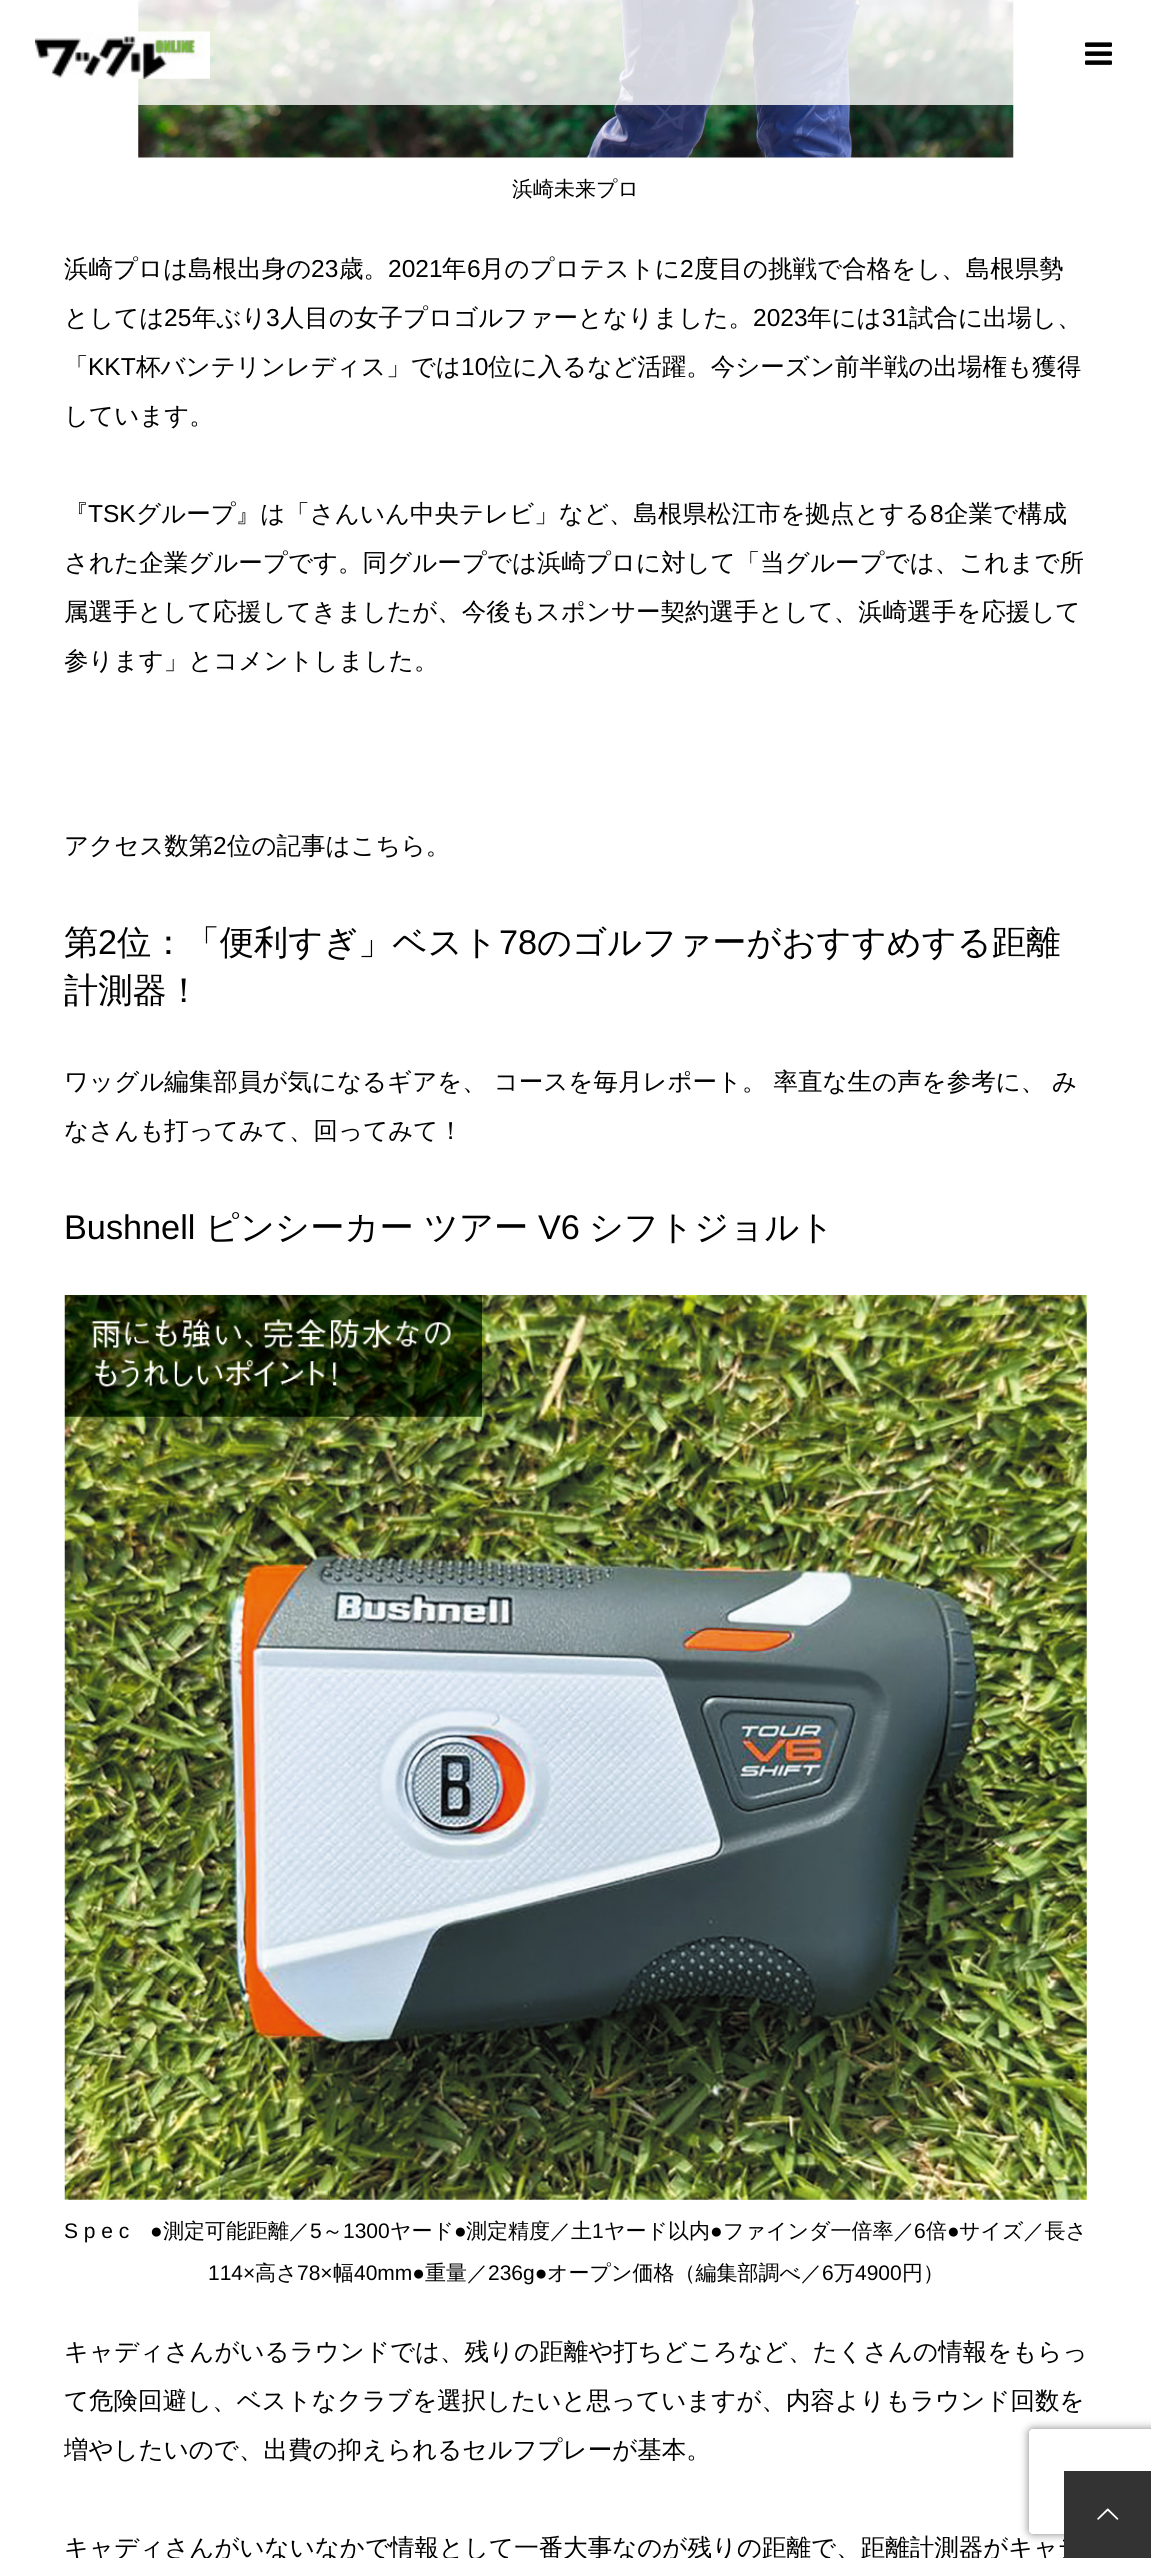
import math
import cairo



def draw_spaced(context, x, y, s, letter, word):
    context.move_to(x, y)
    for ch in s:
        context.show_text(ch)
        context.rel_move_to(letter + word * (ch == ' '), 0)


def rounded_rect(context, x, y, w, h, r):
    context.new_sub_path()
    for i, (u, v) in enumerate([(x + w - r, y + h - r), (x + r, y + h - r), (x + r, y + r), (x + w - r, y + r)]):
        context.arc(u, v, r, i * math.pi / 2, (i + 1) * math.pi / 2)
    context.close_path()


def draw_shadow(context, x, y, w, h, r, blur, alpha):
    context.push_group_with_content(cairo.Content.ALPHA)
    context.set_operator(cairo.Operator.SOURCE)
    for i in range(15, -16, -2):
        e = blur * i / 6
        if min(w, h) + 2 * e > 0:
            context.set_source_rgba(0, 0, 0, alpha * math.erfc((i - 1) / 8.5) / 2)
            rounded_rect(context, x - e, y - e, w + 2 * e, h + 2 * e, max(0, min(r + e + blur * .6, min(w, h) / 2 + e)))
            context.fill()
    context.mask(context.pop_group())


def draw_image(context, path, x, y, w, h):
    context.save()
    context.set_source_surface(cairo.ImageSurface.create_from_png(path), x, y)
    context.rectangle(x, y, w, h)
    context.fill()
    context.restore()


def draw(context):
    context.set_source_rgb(1, 1, 1)
    context.paint()
    draw_image(context, "images/3.png", 138, 0, 876, 158)
    context.set_source_rgba(1, 1, 1, 0.8)
    context.rectangle(138, 0, 876, 105)
    context.fill()
    draw_image(context, "images/1.png", 35, 31, 175, 48)
    draw_image(context, "images/2.png", 1085, 42, 27, 23)
    draw_image(context, "images/4.png", 64, 1295, 1023, 905)
    context.save()
    context.set_fill_rule(cairo.FillRule.EVEN_ODD)
    context.new_path()
    context.move_to(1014, 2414)
    context.line_to(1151, 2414)
    context.line_to(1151, 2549)
    context.line_to(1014, 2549)
    context.close_path()
    context.move_to(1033, 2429)
    context.line_to(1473, 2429)
    context.curve_to(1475, 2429, 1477, 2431, 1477, 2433)
    context.line_to(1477, 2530)
    context.curve_to(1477, 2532, 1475, 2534, 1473, 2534)
    context.line_to(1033, 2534)
    context.curve_to(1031, 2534, 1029, 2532, 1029, 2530)
    context.line_to(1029, 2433)
    context.curve_to(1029, 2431, 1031, 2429, 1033, 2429)
    context.close_path()
    context.clip()
    context.set_source_rgb(128 / 255, 128 / 255, 128 / 255)
    draw_shadow(context, 1029, 2429, 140, 105, 4, 4.5, 1)
    context.restore()
    context.select_font_face("WenQuanYi Zen Hei Medium")
    context.set_font_size(21)
    context.set_source_rgb(0, 0, 0)
    context.move_to(512, 196)
    context.show_text("浜崎未来プロ")
    context.set_font_size(24.5)
    context.move_to(64, 277)
    context.show_text("浜崎プロは島根出身の")
    context.select_font_face("Liberation Sans")
    context.move_to(311, 277)
    context.show_text("23")
    context.select_font_face("WenQuanYi Zen Hei Medium")
    context.move_to(339, 277)
    context.show_text("歳。")
    context.select_font_face("Liberation Sans")
    context.move_to(388, 277)
    context.show_text("2021")
    context.select_font_face("WenQuanYi Zen Hei Medium")
    context.move_to(442, 277)
    context.show_text("年")
    context.select_font_face("Liberation Sans")
    context.move_to(467, 277)
    context.show_text("6")
    context.select_font_face("WenQuanYi Zen Hei Medium")
    context.move_to(480, 277)
    context.show_text("月のプロテストに")
    context.select_font_face("Liberation Sans")
    context.move_to(680, 277)
    context.show_text("2")
    context.select_font_face("WenQuanYi Zen Hei Medium")
    context.move_to(694, 277)
    context.show_text("度目の挑戦で合格をし、島根県勢")
    context.move_to(64, 326)
    context.show_text("としては")
    context.select_font_face("Liberation Sans")
    context.move_to(164, 326)
    context.show_text("25")
    context.select_font_face("WenQuanYi Zen Hei Medium")
    context.move_to(192, 326)
    context.show_text("年ぶり")
    context.select_font_face("Liberation Sans")
    context.move_to(266, 326)
    context.show_text("3")
    context.select_font_face("WenQuanYi Zen Hei Medium")
    context.move_to(280, 326)
    context.show_text("人目の女子プロゴルファーとなりました。")
    context.select_font_face("Liberation Sans")
    context.move_to(753, 326)
    context.show_text("2023")
    context.select_font_face("WenQuanYi Zen Hei Medium")
    context.move_to(807, 326)
    context.show_text("年には")
    context.select_font_face("Liberation Sans")
    context.move_to(882, 326)
    context.show_text("31")
    context.select_font_face("WenQuanYi Zen Hei Medium")
    context.move_to(909, 326)
    context.show_text("試合に出場し、")
    context.move_to(64, 375)
    context.show_text("「")
    context.select_font_face("Liberation Sans")
    context.move_to(88, 375)
    context.show_text("KKT")
    context.select_font_face("WenQuanYi Zen Hei Medium")
    context.move_to(136, 375)
    context.show_text("杯バンテリンレディス」では")
    context.select_font_face("Liberation Sans")
    context.move_to(461, 375)
    context.show_text("10")
    context.select_font_face("WenQuanYi Zen Hei Medium")
    context.move_to(488, 375)
    context.show_text("位に入るなど活躍。今シーズン前半戦の出場権も獲得")
    context.move_to(64, 424)
    context.show_text("しています。")
    context.move_to(64, 522)
    context.show_text("『")
    context.select_font_face("Liberation Sans")
    context.move_to(88, 522)
    context.show_text("TSK")
    context.select_font_face("WenQuanYi Zen Hei Medium")
    context.move_to(136, 522)
    context.show_text("グループ』は「さんいん中央テレビ」など、島根県松江市を拠点とする")
    context.select_font_face("Liberation Sans")
    context.move_to(930, 522)
    context.show_text("8")
    context.select_font_face("WenQuanYi Zen Hei Medium")
    context.move_to(944, 522)
    context.show_text("企業で構成")
    context.move_to(64, 571)
    context.show_text("された企業グループです。同グループでは浜崎プロに対して「当グループでは、これまで所")
    context.move_to(64, 620)
    context.show_text("属選手として応援してきましたが、今後もスポンサー契約選手として、浜崎選手を応援して")
    context.move_to(64, 669)
    context.show_text("参ります」とコメントしました。")
    context.move_to(64, 854)
    context.show_text("アクセス数第")
    context.select_font_face("Liberation Sans")
    context.move_to(213, 854)
    context.show_text("2")
    context.select_font_face("WenQuanYi Zen Hei Medium")
    context.move_to(227, 854)
    context.show_text("位の記事はこちら。")
    context.set_font_size(34.25)
    context.move_to(64, 954)
    context.show_text("第")
    context.select_font_face("Liberation Sans")
    context.move_to(98, 954)
    context.show_text("2")
    context.select_font_face("WenQuanYi Zen Hei Medium")
    context.move_to(117, 954)
    context.show_text("位：「便利すぎ」ベスト")
    context.select_font_face("Liberation Sans")
    context.move_to(499, 954)
    context.show_text("78")
    context.select_font_face("WenQuanYi Zen Hei Medium")
    context.move_to(537, 954)
    context.show_text("のゴルファーがおすすめする距離")
    context.move_to(64, 1002)
    context.show_text("計測器！")
    context.set_font_size(24.5)
    draw_spaced(context, 64, 1090, "ワッグル編集部員が気になるギアを、 コースを毎月レポート。 率直な生の声を参考に、 み", 0, -0.5)
    context.move_to(64, 1139)
    context.show_text("なさんも打ってみて、回ってみて！")
    context.select_font_face("Liberation Sans")
    context.set_font_size(34.25)
    context.move_to(64, 1239)
    context.show_text("Bushnell")
    context.select_font_face("WenQuanYi Zen Hei Medium")
    context.move_to(205, 1239)
    context.show_text("ピンシーカー ツアー")
    context.select_font_face("Liberation Sans")
    context.move_to(538, 1239)
    context.show_text("V6")
    context.select_font_face("WenQuanYi Zen Hei Medium")
    context.move_to(589, 1239)
    context.show_text("シフトジョルト")
    context.select_font_face("Liberation Sans")
    context.set_font_size(21)
    context.move_to(64, 2238)
    context.show_text("S p e c")
    context.move_to(150, 2238)
    context.show_text("●")
    context.select_font_face("WenQuanYi Zen Hei Medium")
    context.move_to(163, 2238)
    context.show_text("測定可能距離／")
    context.select_font_face("Liberation Sans")
    context.move_to(310, 2238)
    context.show_text("5")
    context.select_font_face("WenQuanYi Zen Hei Medium")
    context.move_to(322, 2238)
    context.show_text("～")
    context.select_font_face("Liberation Sans")
    context.move_to(343, 2238)
    context.show_text("1300")
    context.select_font_face("WenQuanYi Zen Hei Medium")
    context.move_to(390, 2238)
    context.show_text("ヤード")
    context.select_font_face("Liberation Sans")
    context.move_to(454, 2238)
    context.show_text("●")
    context.select_font_face("WenQuanYi Zen Hei Medium")
    context.move_to(466, 2238)
    context.show_text("測定精度／土")
    context.select_font_face("Liberation Sans")
    context.move_to(592, 2238)
    context.show_text("1")
    context.select_font_face("WenQuanYi Zen Hei Medium")
    context.move_to(604, 2238)
    context.show_text("ヤード以内")
    context.select_font_face("Liberation Sans")
    context.move_to(710, 2238)
    context.show_text("●")
    context.select_font_face("WenQuanYi Zen Hei Medium")
    context.move_to(723, 2238)
    context.show_text("ファインダ一倍率／")
    context.select_font_face("Liberation Sans")
    context.move_to(914, 2238)
    context.show_text("6")
    context.select_font_face("WenQuanYi Zen Hei Medium")
    context.move_to(926, 2238)
    context.show_text("倍")
    context.select_font_face("Liberation Sans")
    context.move_to(947, 2238)
    context.show_text("●")
    context.select_font_face("WenQuanYi Zen Hei Medium")
    context.move_to(959, 2238)
    context.show_text("サイズ／長さ")
    context.select_font_face("Liberation Sans")
    context.move_to(208, 2280)
    context.show_text("114×")
    context.select_font_face("WenQuanYi Zen Hei Medium")
    context.move_to(255, 2280)
    context.show_text("高さ")
    context.select_font_face("Liberation Sans")
    context.move_to(297, 2280)
    context.show_text("78×")
    context.select_font_face("WenQuanYi Zen Hei Medium")
    context.move_to(333, 2280)
    context.show_text("幅")
    context.select_font_face("Liberation Sans")
    context.move_to(354, 2280)
    context.show_text("40mm●")
    context.select_font_face("WenQuanYi Zen Hei Medium")
    context.move_to(425, 2280)
    context.show_text("重量／")
    context.select_font_face("Liberation Sans")
    context.move_to(488, 2280)
    context.show_text("236g●")
    context.select_font_face("WenQuanYi Zen Hei Medium")
    context.move_to(547, 2280)
    context.show_text("オープン価格（編集部調べ／")
    context.select_font_face("Liberation Sans")
    context.move_to(822, 2280)
    context.show_text("6")
    context.select_font_face("WenQuanYi Zen Hei Medium")
    context.move_to(834, 2280)
    context.show_text("万")
    context.select_font_face("Liberation Sans")
    context.move_to(855, 2280)
    context.show_text("4900")
    context.select_font_face("WenQuanYi Zen Hei Medium")
    context.move_to(902, 2280)
    context.show_text("円）")
    context.set_font_size(24.5)
    context.move_to(64, 2360)
    context.show_text("キャディさんがいるラウンドでは、残りの距離や打ちどころなど、たくさんの情報をもらっ")
    context.move_to(64, 2409)
    context.show_text("て危険回避し、ベストなクラブを選択したいと思っていますが、内容よりもラウンド回数を")
    context.move_to(64, 2458)
    context.show_text("増やしたいので、出費の抑えられるセルフプレーが基本。")
    context.move_to(64, 2556)
    context.show_text("キャディさんがいないなかで情報として一番大事なのが残りの距離で、距離計測器がキャデ")
    context.set_source_rgb(51 / 255, 51 / 255, 51 / 255)
    context.rectangle(1064, 2471, 87, 87)
    context.fill()
    draw_image(context, "images/5.png", 1097, 2508, 22, 12)


surface = cairo.ImageSurface(cairo.Format.RGB24, 1151, 2558)
context = cairo.Context(surface)
options = cairo.FontOptions()
options.set_hint_metrics(cairo.HintMetrics.OFF)
options.set_hint_style(cairo.HintStyle.NONE)
context.set_font_options(options)
context.set_miter_limit(4)
draw(context)
surface.write_to_png("out.png")
